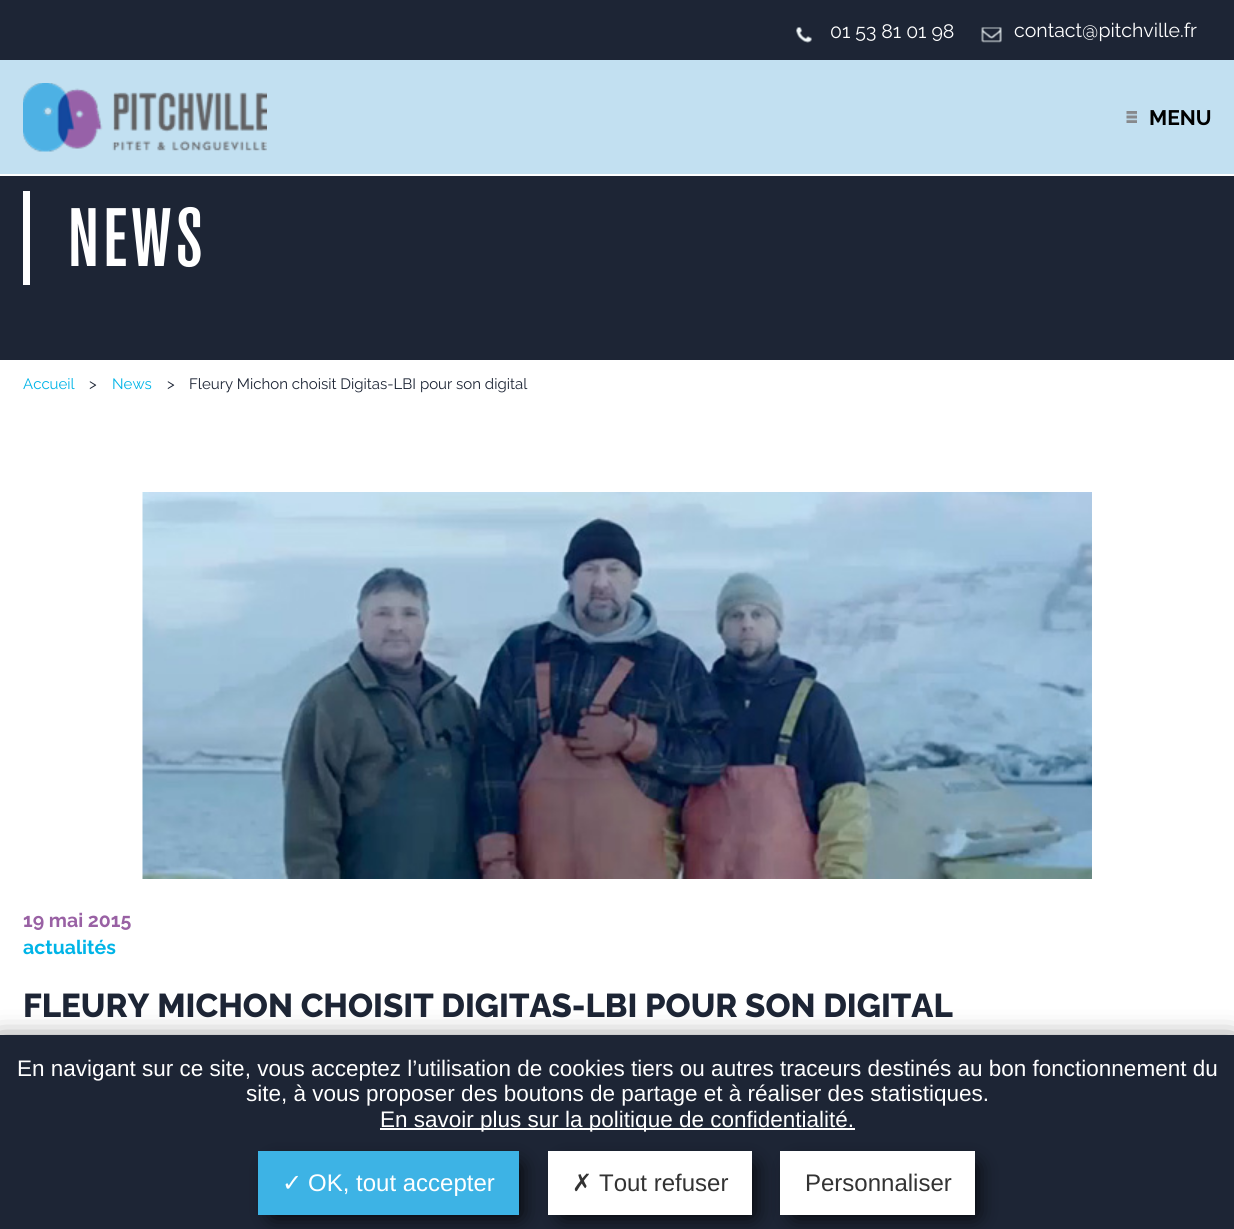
import math
import cairo



def draw_spaced(context, x, y, s, letter, word):
    context.move_to(x, y)
    for ch in s:
        context.show_text(ch)
        context.rel_move_to(letter + word * (ch == ' '), 0)


def rounded_rect(context, x, y, w, h, r):
    context.new_sub_path()
    for i, (u, v) in enumerate([(x + w - r, y + h - r), (x + r, y + h - r), (x + r, y + r), (x + w - r, y + r)]):
        context.arc(u, v, r, i * math.pi / 2, (i + 1) * math.pi / 2)
    context.close_path()


def draw_shadow(context, x, y, w, h, r, blur, alpha):
    context.push_group_with_content(cairo.Content.ALPHA)
    context.set_operator(cairo.Operator.SOURCE)
    for i in range(15, -16, -2):
        e = blur * i / 6
        if min(w, h) + 2 * e > 0:
            context.set_source_rgba(0, 0, 0, alpha * math.erfc((i - 1) / 8.5) / 2)
            rounded_rect(context, x - e, y - e, w + 2 * e, h + 2 * e, max(0, min(r + e + blur * .6, min(w, h) / 2 + e)))
            context.fill()
    context.mask(context.pop_group())


def draw_image(context, path, x, y, w, h):
    context.save()
    context.set_source_surface(cairo.ImageSurface.create_from_png(path), x, y)
    context.rectangle(x, y, w, h)
    context.fill()
    context.restore()


def draw(context):
    context.set_source_rgb(1, 1, 1)
    context.paint()
    context.set_source_rgb(29 / 255, 37 / 255, 53 / 255)
    context.rectangle(0, 0, 1234, 60)
    context.fill()
    draw_image(context, "images/1.png", 796, 27, 16, 16)
    draw_image(context, "images/2.png", 981, 27, 21, 16)
    context.set_source_rgb(194 / 255, 224 / 255, 241 / 255)
    context.rectangle(0, 60, 1234, 114)
    context.fill()
    draw_image(context, "images/3.png", 23, 83, 244, 69)
    draw_image(context, "images/4.png", 1126, 111, 11, 12)
    context.set_source_rgb(29 / 255, 37 / 255, 53 / 255)
    context.rectangle(0, 176, 1234, 184)
    context.fill()
    context.set_source_rgb(1, 1, 1)
    context.rectangle(23, 191, 7, 94)
    context.fill()
    draw_image(context, "images/5.png", 142, 492, 950, 387)
    context.set_source_rgb(0, 0, 0)
    draw_shadow(context, -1, 1047, 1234, 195, 0, 15, 1)
    context.set_source_rgb(29 / 255, 37 / 255, 53 / 255)
    context.rectangle(0, 1035, 1234, 194)
    context.fill()
    context.set_source_rgb(1, 1, 1)
    context.rectangle(380, 1128, 475, 2)
    context.fill()
    context.set_source_rgb(0, 0, 0)
    draw_shadow(context, 273, 1166, 246, 49, 0, 11, 1)
    context.set_source_rgb(61 / 255, 179 / 255, 229 / 255)
    context.rectangle(258, 1151, 261, 64)
    context.fill()
    context.set_source_rgb(0, 0, 0)
    draw_shadow(context, 563, 1166, 189, 49, 0, 11, 1)
    context.set_source_rgb(1, 1, 1)
    context.rectangle(548, 1151, 204, 64)
    context.fill()
    context.set_source_rgb(0, 0, 0)
    draw_shadow(context, 795, 1166, 180, 49, 0, 11, 1)
    context.set_source_rgb(1, 1, 1)
    context.rectangle(780, 1151, 195, 64)
    context.fill()
    context.select_font_face("Raleway")
    context.set_font_size(19.5)
    context.move_to(830, 38)
    context.show_text("01 53 81 01 98")
    context.move_to(1014, 37)
    context.show_text("contact@pitchville.fr")
    context.select_font_face("Raleway", cairo.FontSlant.NORMAL, cairo.FontWeight.BOLD)
    context.set_font_size(21)
    context.set_source_rgb(0, 0, 0)
    context.move_to(1149, 125)
    context.show_text("MENU")
    context.select_font_face("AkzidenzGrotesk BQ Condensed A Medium")
    context.set_font_size(82)
    context.set_source_rgb(1, 1, 1)
    draw_spaced(context, 68, 266, "NEWS", 4.5, 0)
    context.select_font_face("Raleway")
    context.set_font_size(15)
    context.set_source_rgb(0, 180 / 255, 231 / 255)
    context.move_to(23, 389)
    context.show_text("Accueil")
    context.set_source_rgb(29 / 255, 37 / 255, 53 / 255)
    context.move_to(89, 389)
    context.show_text(">")
    context.set_source_rgb(0, 180 / 255, 231 / 255)
    context.move_to(112, 389)
    context.show_text("News")
    context.set_source_rgb(29 / 255, 37 / 255, 53 / 255)
    context.move_to(167, 389)
    context.show_text(">")
    context.move_to(189, 389)
    context.show_text("Fleury Michon choisit Digitas-LBI pour son digital")
    context.select_font_face("Raleway", cairo.FontSlant.NORMAL, cairo.FontWeight.BOLD)
    context.set_font_size(19.5)
    context.set_source_rgb(153 / 255, 97 / 255, 164 / 255)
    context.move_to(23, 927)
    context.show_text("19 mai 2015")
    context.set_source_rgb(0, 180 / 255, 231 / 255)
    context.move_to(23, 954)
    context.show_text("actualités")
    context.select_font_face("Raleway ExtraBold")
    context.set_font_size(33)
    context.set_source_rgb(29 / 255, 37 / 255, 53 / 255)
    context.move_to(23, 1017)
    context.show_text("FLEURY MICHON CHOISIT DIGITAS-LBI POUR SON DIGITAL")
    context.select_font_face("Liberation Sans")
    context.set_font_size(22.5)
    context.set_source_rgb(1, 1, 1)
    context.move_to(17, 1076)
    context.show_text("En navigant sur ce site, vous acceptez l’utilisation de cookies tiers ou autres traceurs destinés au bon fonctionnement du")
    context.move_to(246, 1101)
    context.show_text("site, à vous proposer des boutons de partage et à réaliser des statistiques.")
    context.move_to(380, 1127)
    context.show_text("En savoir plus sur la politique de confidentialité.")
    context.select_font_face("DejaVu Sans")
    context.set_font_size(24)
    context.move_to(282, 1191)
    context.show_text("✓")
    context.select_font_face("Liberation Sans")
    context.move_to(308, 1191)
    context.show_text("OK, tout accepter")
    context.select_font_face("DejaVu Sans")
    context.set_source_rgb(51 / 255, 51 / 255, 51 / 255)
    context.move_to(572, 1191)
    context.show_text("✗")
    context.select_font_face("Liberation Sans")
    context.move_to(599, 1191)
    context.show_text("Tout refuser")
    context.move_to(805, 1191)
    context.show_text("Personnaliser")


surface = cairo.ImageSurface(cairo.Format.RGB24, 1234, 1229)
context = cairo.Context(surface)
options = cairo.FontOptions()
options.set_hint_metrics(cairo.HintMetrics.OFF)
options.set_hint_style(cairo.HintStyle.NONE)
context.set_font_options(options)
context.set_miter_limit(4)
draw(context)
surface.write_to_png("out.png")
